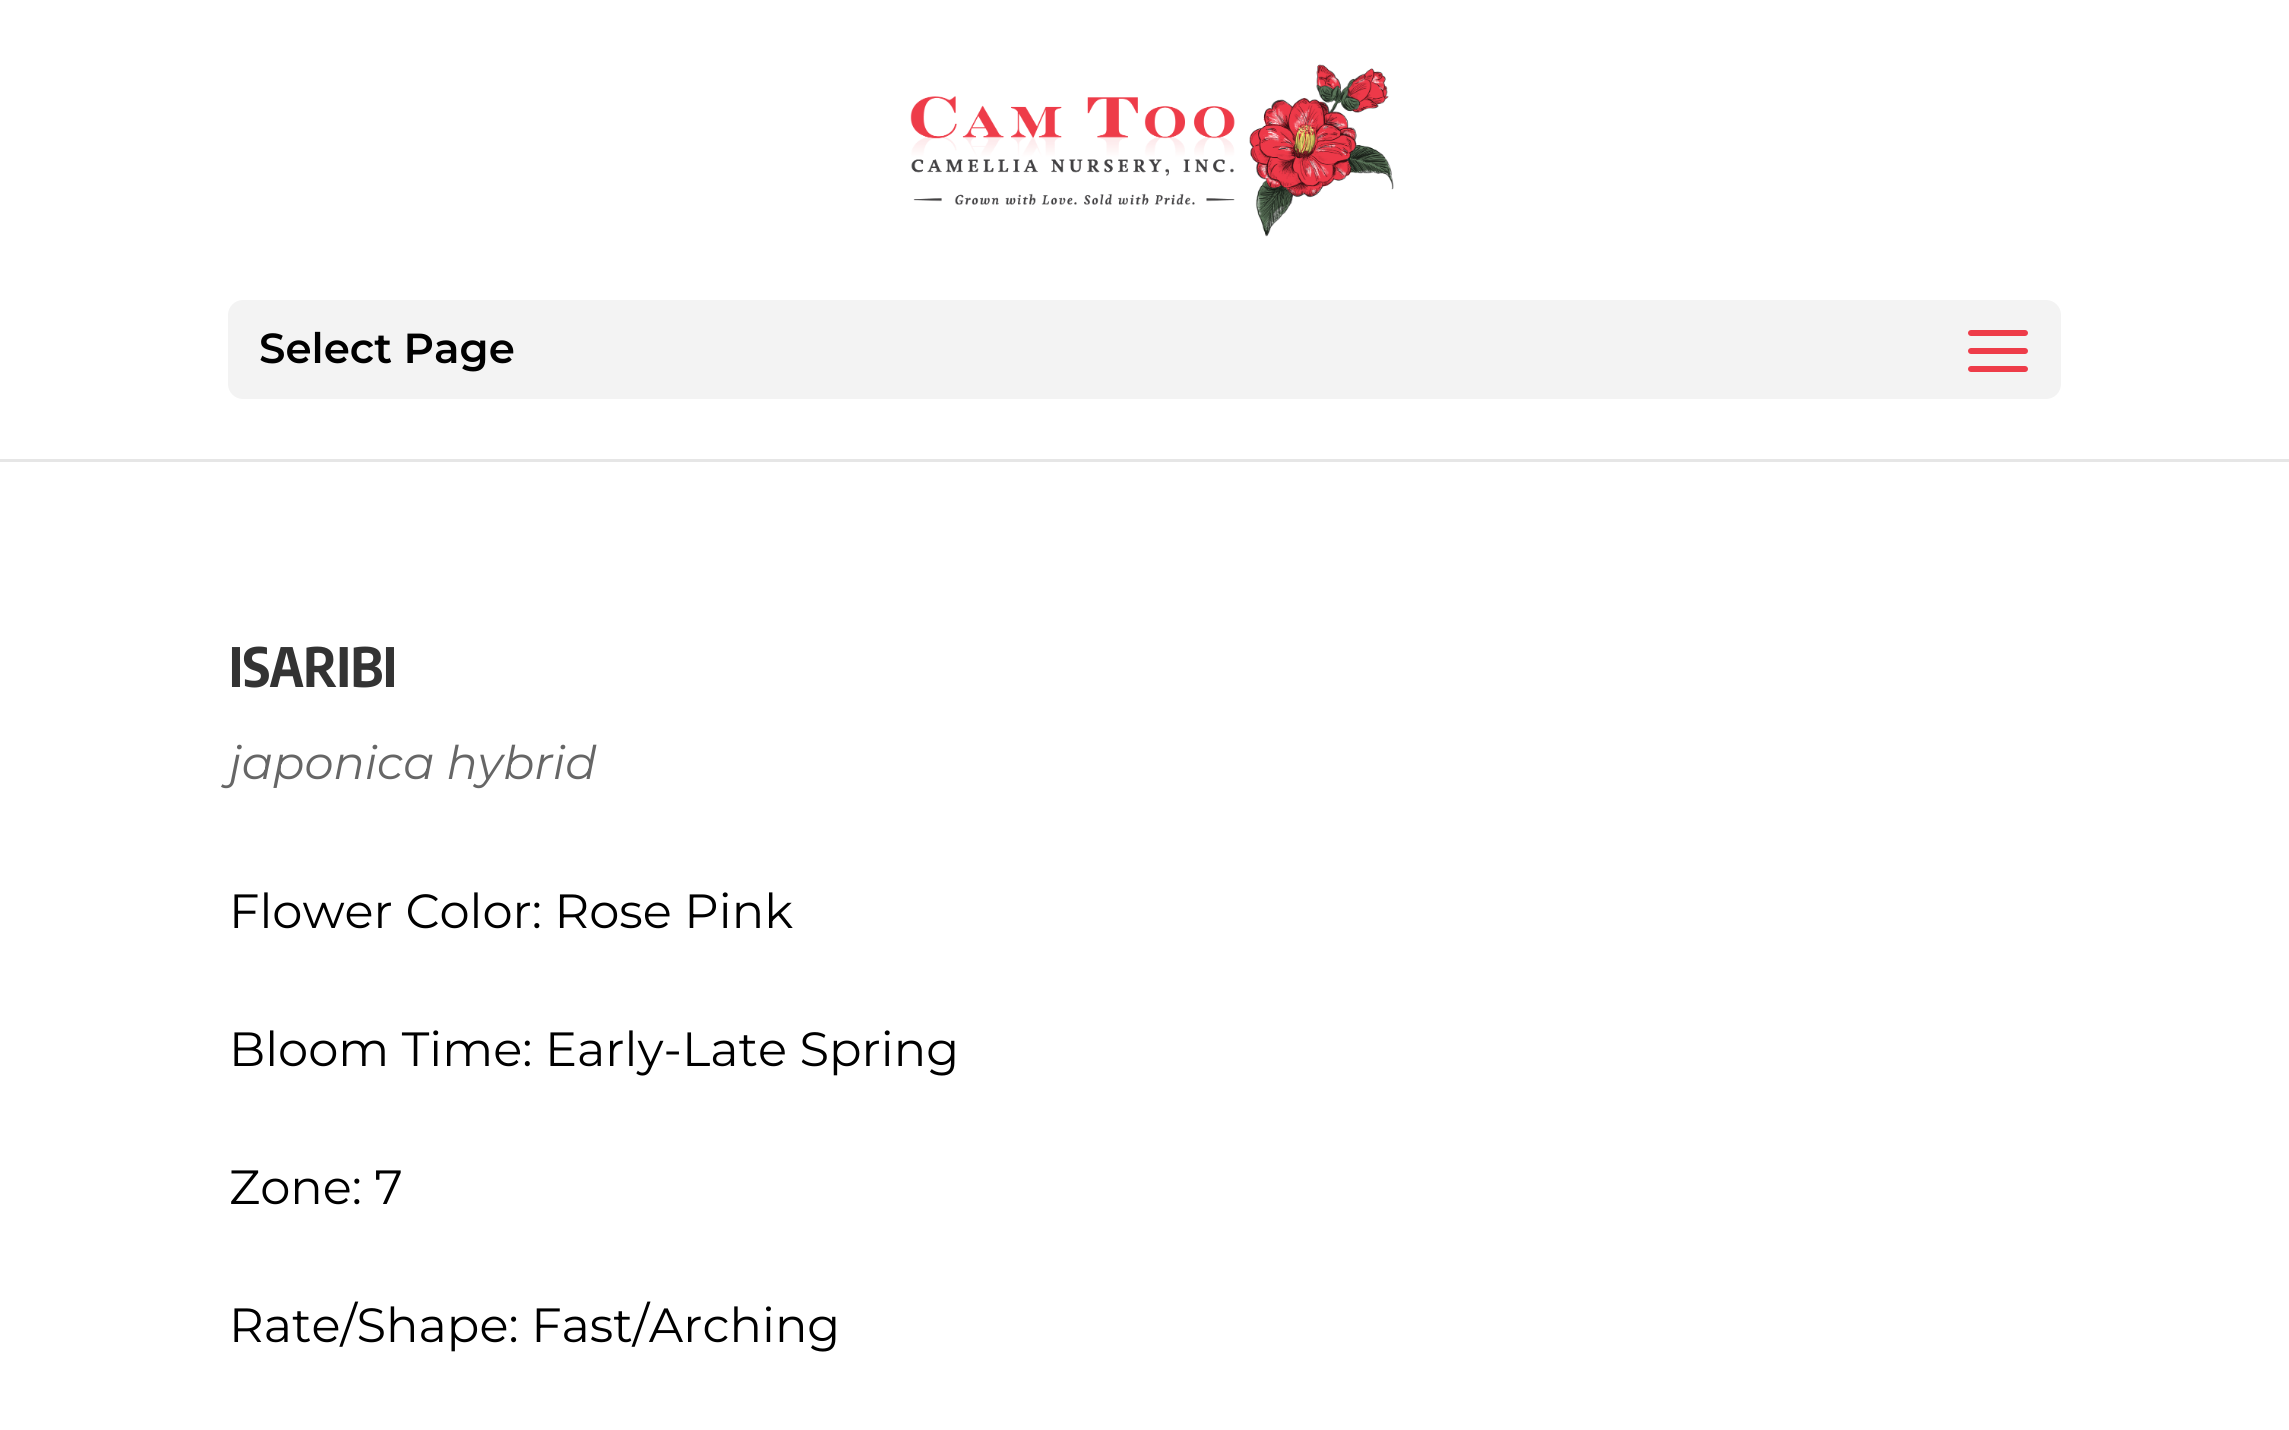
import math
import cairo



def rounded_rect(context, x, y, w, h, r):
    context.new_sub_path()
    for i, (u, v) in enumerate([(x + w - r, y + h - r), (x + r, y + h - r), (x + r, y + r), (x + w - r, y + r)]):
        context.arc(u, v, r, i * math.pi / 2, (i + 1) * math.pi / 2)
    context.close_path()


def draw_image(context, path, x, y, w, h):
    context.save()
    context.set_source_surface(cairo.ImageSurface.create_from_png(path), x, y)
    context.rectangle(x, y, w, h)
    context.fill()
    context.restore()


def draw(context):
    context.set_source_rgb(1, 1, 1)
    context.paint()
    context.set_source_rgb(230 / 255, 230 / 255, 230 / 255)
    context.rectangle(0, 459, 2289, 3)
    context.fill()
    draw_image(context, "images/1.png", 910, 64, 484, 173)
    context.set_source_rgb(243 / 255, 243 / 255, 243 / 255)
    rounded_rect(context, 228, 300, 1833, 99, 15)
    context.fill()
    draw_image(context, "images/2.png", 1968, 330, 60, 42)
    context.select_font_face("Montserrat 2 Thin")
    context.set_font_size(42)
    context.set_source_rgb(0, 0, 0)
    context.move_to(259, 363)
    context.show_text("Select Page")
    context.select_font_face("Encode Sans Condensed", cairo.FontSlant.NORMAL, cairo.FontWeight.BOLD)
    context.set_font_size(54)
    context.set_source_rgb(51 / 255, 51 / 255, 51 / 255)
    context.move_to(229, 687)
    context.show_text("ISARIBI")
    context.select_font_face("Montserrat Thin", cairo.FontSlant.ITALIC)
    context.set_font_size(46.25)
    context.set_source_rgb(102 / 255, 102 / 255, 102 / 255)
    context.move_to(229, 779)
    context.show_text("japonica hybrid")
    context.select_font_face("Montserrat Thin")
    context.set_font_size(48)
    context.set_source_rgb(0, 0, 0)
    context.move_to(229, 928)
    context.show_text("Flower Color: Rose Pink")
    context.move_to(229, 1066)
    context.show_text("Bloom Time: Early-Late Spring")
    context.move_to(229, 1204)
    context.show_text("Zone: 7")
    context.move_to(229, 1342)
    context.show_text("Rate/Shape: Fast/Arching")


surface = cairo.ImageSurface(cairo.Format.RGB24, 2289, 1430)
context = cairo.Context(surface)
options = cairo.FontOptions()
options.set_hint_metrics(cairo.HintMetrics.OFF)
options.set_hint_style(cairo.HintStyle.NONE)
context.set_font_options(options)
context.set_miter_limit(4)
draw(context)
surface.write_to_png("out.png")
